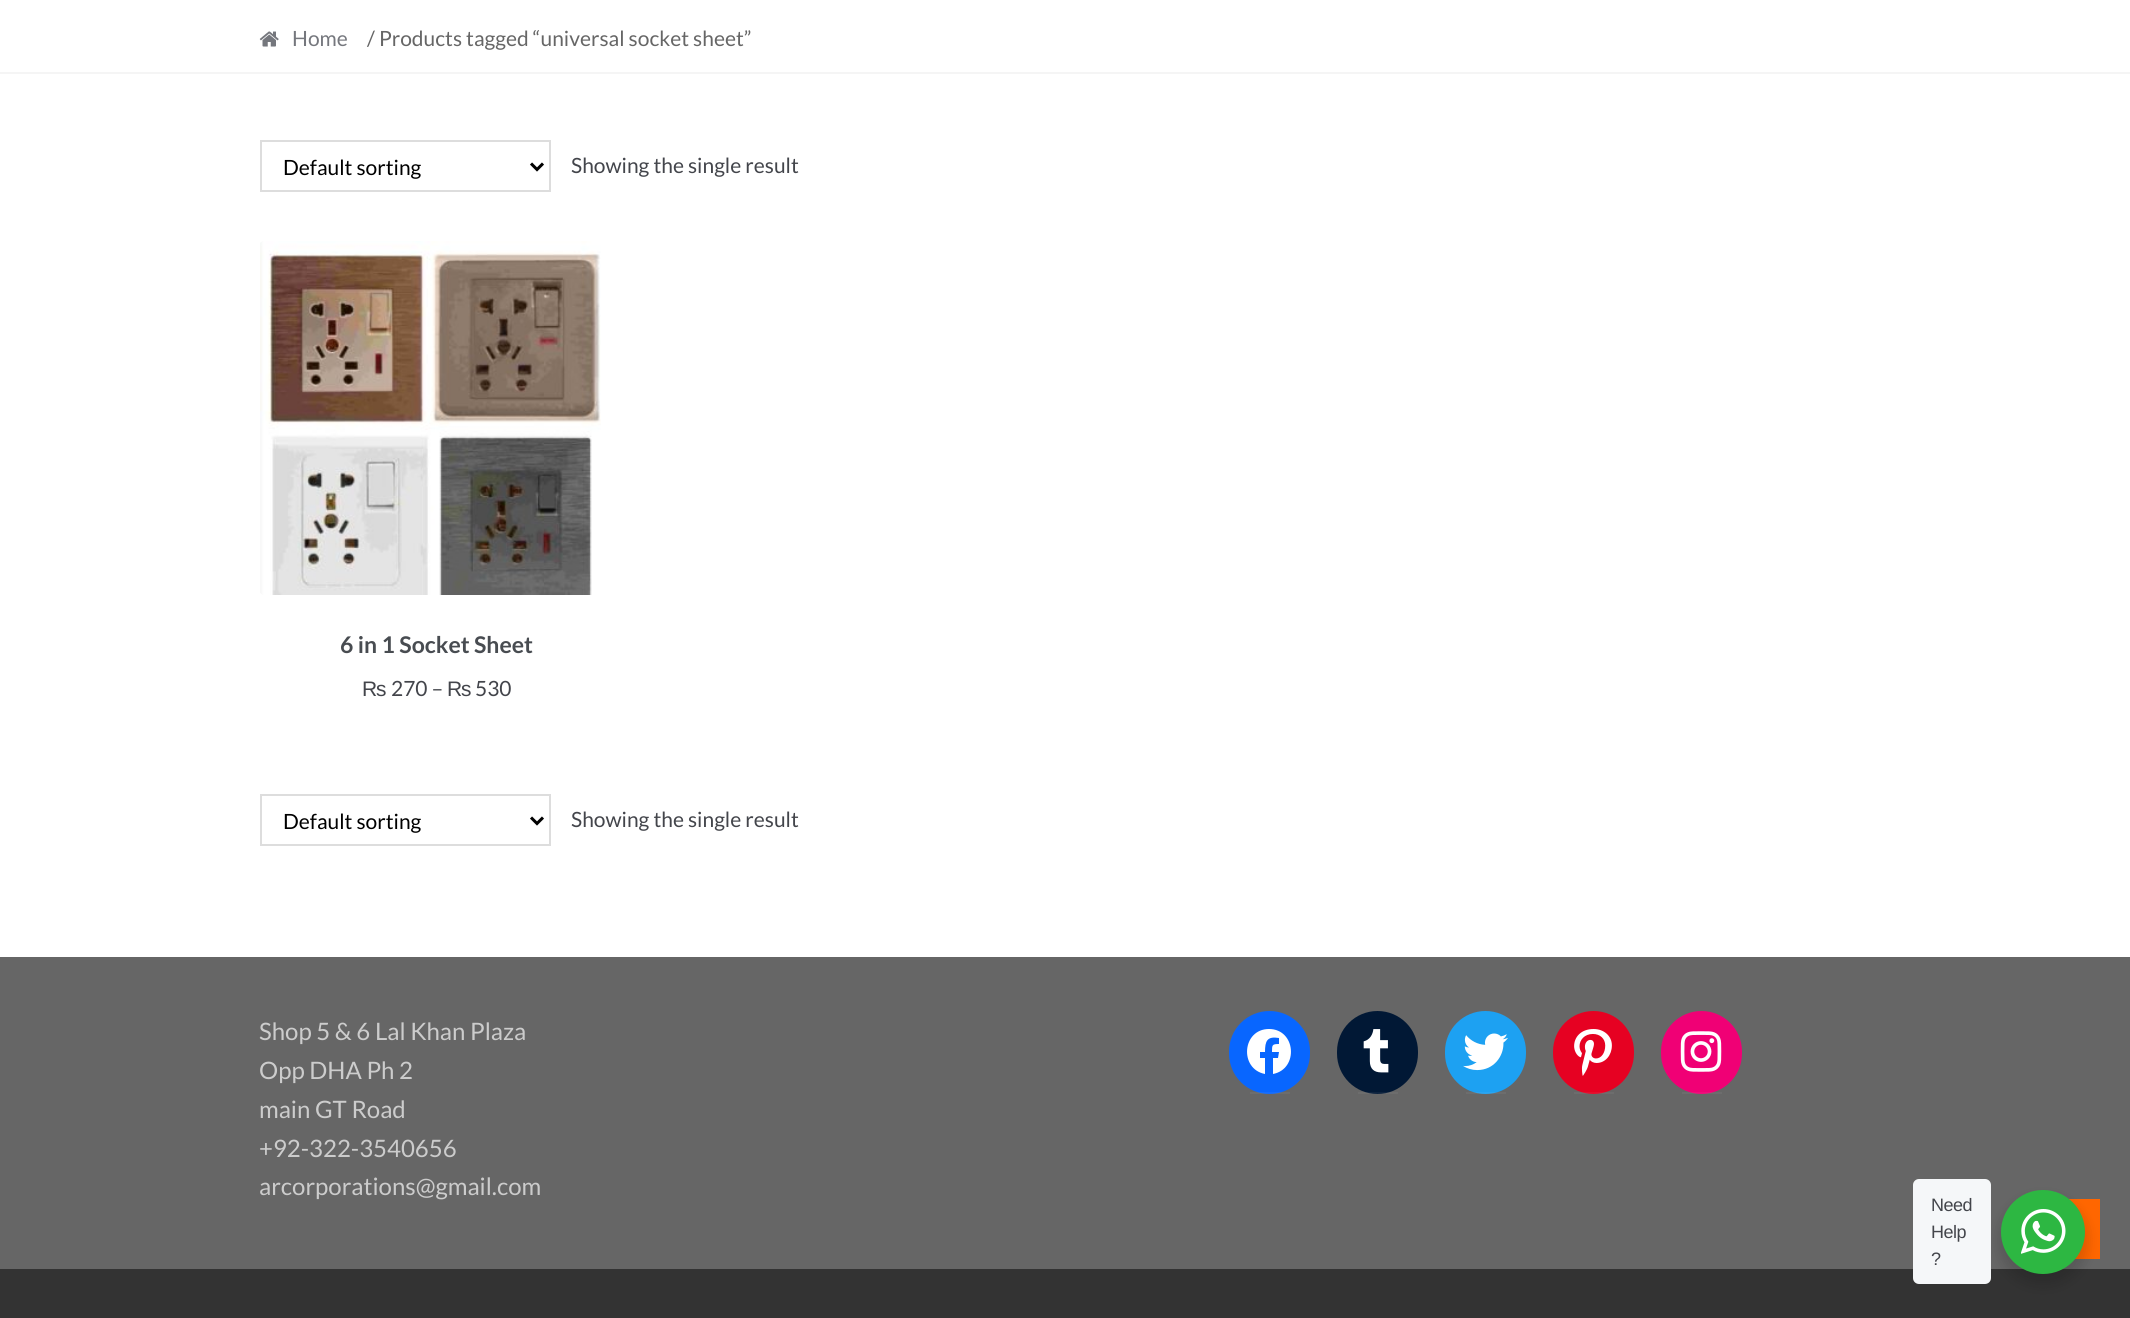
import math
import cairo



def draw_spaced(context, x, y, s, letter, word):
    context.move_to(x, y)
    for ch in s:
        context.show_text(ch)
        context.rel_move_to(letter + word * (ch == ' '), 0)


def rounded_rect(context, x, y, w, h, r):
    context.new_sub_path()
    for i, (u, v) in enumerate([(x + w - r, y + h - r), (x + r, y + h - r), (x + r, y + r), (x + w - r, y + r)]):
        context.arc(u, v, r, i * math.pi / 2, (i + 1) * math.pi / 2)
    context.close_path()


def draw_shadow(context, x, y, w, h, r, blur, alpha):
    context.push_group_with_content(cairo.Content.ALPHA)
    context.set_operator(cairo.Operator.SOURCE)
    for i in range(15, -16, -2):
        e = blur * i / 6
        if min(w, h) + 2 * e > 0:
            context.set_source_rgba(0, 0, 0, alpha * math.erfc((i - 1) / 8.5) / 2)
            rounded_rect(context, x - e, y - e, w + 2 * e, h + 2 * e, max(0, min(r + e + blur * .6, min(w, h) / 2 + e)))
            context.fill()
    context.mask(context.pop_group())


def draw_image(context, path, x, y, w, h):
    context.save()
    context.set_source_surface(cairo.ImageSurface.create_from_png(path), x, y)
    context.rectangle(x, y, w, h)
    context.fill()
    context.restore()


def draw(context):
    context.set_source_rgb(1, 1, 1)
    context.paint()
    context.set_source_rgb(245 / 255, 245 / 255, 245 / 255)
    context.rectangle(0, 72, 2130, 2)
    context.fill()
    draw_image(context, "images/1.png", 259, 31, 20, 16)
    context.rectangle(261, 141, 289, 50)
    context.set_source_rgb(221 / 255, 221 / 255, 221 / 255)
    context.stroke()
    context.new_path()
    context.move_to(531, 163.5)
    context.line_to(537, 169.5)
    context.line_to(543, 163.5)
    context.set_source_rgb(0, 0, 0)
    context.set_line_width(3)
    context.stroke()
    draw_image(context, "images/2.png", 260, 241, 341, 354)
    context.rectangle(261, 795, 289, 50)
    context.set_source_rgb(221 / 255, 221 / 255, 221 / 255)
    context.set_line_width(2)
    context.stroke()
    context.new_path()
    context.move_to(531, 817.5)
    context.line_to(537, 823.5)
    context.line_to(543, 817.5)
    context.set_source_rgb(0, 0, 0)
    context.set_line_width(3)
    context.stroke()
    context.set_source_rgb(51 / 255, 51 / 255, 51 / 255)
    context.rectangle(0, 1269, 2130, 49)
    context.fill()
    context.set_source_rgb(102 / 255, 102 / 255, 102 / 255)
    context.rectangle(0, 957, 2130, 312)
    context.fill()
    context.set_source_rgb(8 / 255, 102 / 255, 1)
    rounded_rect(context, 1229, 1011, 81, 83, 40.5)
    context.fill()
    context.set_source_rgba(1, 1, 1, 0.05)
    context.rectangle(1250, 1092, 40, 2)
    context.fill()
    context.set_source_rgb(1, 1, 1)
    context.new_path()
    context.move_to(1269, 1029)
    context.curve_to(1242, 1029, 1239, 1069, 1265, 1074)
    context.line_to(1265, 1058)
    context.line_to(1260, 1058)
    context.line_to(1260, 1052)
    context.line_to(1265, 1052)
    context.curve_to(1265, 1041, 1267, 1036, 1279, 1038)
    context.line_to(1279, 1044)
    context.curve_to(1272, 1044, 1272, 1045, 1272, 1052)
    context.line_to(1279, 1052)
    context.line_to(1278, 1058)
    context.line_to(1273, 1058)
    context.line_to(1273, 1074)
    context.curve_to(1299, 1069, 1296, 1029, 1269, 1029)
    context.close_path()
    context.fill()
    context.set_source_rgb(1 / 255, 24 / 255, 53 / 255)
    rounded_rect(context, 1337, 1011, 81, 83, 40.5)
    context.fill()
    context.set_source_rgba(1, 1, 1, 0.05)
    context.rectangle(1358, 1092, 40, 2)
    context.fill()
    draw_image(context, "images/3.png", 1363, 1029, 26, 44)
    context.set_source_rgb(29 / 255, 161 / 255, 242 / 255)
    rounded_rect(context, 1445, 1011, 81, 83, 40.5)
    context.fill()
    context.set_source_rgba(1, 1, 1, 0.05)
    context.rectangle(1466, 1092, 40, 2)
    context.fill()
    draw_image(context, "images/4.png", 1463, 1033, 45, 38)
    context.set_source_rgb(230 / 255, 1 / 255, 34 / 255)
    rounded_rect(context, 1553, 1011, 81, 83, 40.5)
    context.fill()
    context.set_source_rgba(1, 1, 1, 0.05)
    context.rectangle(1574, 1092, 40, 2)
    context.fill()
    draw_image(context, "images/5.png", 1574, 1029, 38, 47)
    context.set_source_rgb(240 / 255, 0, 117 / 255)
    rounded_rect(context, 1661, 1011, 81, 83, 40.5)
    context.fill()
    context.set_source_rgba(1, 1, 1, 0.05)
    context.rectangle(1682, 1092, 40, 2)
    context.fill()
    draw_image(context, "images/6.png", 1680, 1031, 42, 41)
    context.set_source_rgb(1, 102 / 255, 0)
    context.rectangle(2069, 1199, 31, 60)
    context.fill()
    context.set_source_rgb(0, 0, 0)
    draw_shadow(context, 1998, 1196, 90, 90, 45, 6, 0.14)
    context.set_source_rgb(245 / 255, 247 / 255, 249 / 255)
    rounded_rect(context, 1913, 1179, 78, 105, 6)
    context.fill()
    context.set_source_rgb(45 / 255, 183 / 255, 66 / 255)
    context.arc(2043, 1232, 42, 0, 2 * math.pi)
    context.fill()
    draw_image(context, "images/7.png", 2021, 1209, 45, 45)
    context.select_font_face("Lato")
    context.set_font_size(21)
    context.set_source_rgb(117 / 255, 119 / 255, 125 / 255)
    context.move_to(292, 46)
    context.show_text("Home")
    context.set_source_rgb(102 / 255, 102 / 255, 102 / 255)
    context.move_to(367, 46)
    context.show_text("/ Products tagged “universal socket sheet”")
    context.set_source_rgb(0, 0, 0)
    context.move_to(283, 175)
    context.show_text("Default sorting")
    context.set_source_rgb(67 / 255, 69 / 255, 75 / 255)
    context.move_to(571, 173)
    context.show_text("Showing the single result")
    context.select_font_face("Lato", cairo.FontSlant.NORMAL, cairo.FontWeight.BOLD)
    context.set_font_size(23)
    context.set_source_rgb(72 / 255, 76 / 255, 81 / 255)
    context.move_to(340, 653)
    context.show_text("6 in 1 Socket Sheet")
    context.select_font_face("Liberation Sans")
    context.set_font_size(21)
    context.set_source_rgb(67 / 255, 69 / 255, 75 / 255)
    context.move_to(362, 696)
    context.show_text("₨")
    context.select_font_face("Lato")
    context.move_to(391, 696)
    context.show_text("270 –")
    context.select_font_face("Liberation Sans")
    context.move_to(447, 696)
    context.show_text("₨")
    context.select_font_face("Lato")
    context.move_to(475, 696)
    context.show_text("530")
    context.set_source_rgb(0, 0, 0)
    context.move_to(283, 829)
    context.show_text("Default sorting")
    context.set_source_rgb(67 / 255, 69 / 255, 75 / 255)
    context.move_to(571, 827)
    context.show_text("Showing the single result")
    context.set_font_size(24)
    context.set_source_rgb(204 / 255, 204 / 255, 204 / 255)
    context.move_to(259, 1040)
    context.show_text("Shop 5 & 6 Lal Khan Plaza")
    context.move_to(259, 1079)
    context.show_text("Opp DHA Ph 2")
    context.move_to(259, 1118)
    context.show_text("main GT Road")
    context.move_to(259, 1157)
    context.show_text("+92-322-3540656")
    context.move_to(259, 1195)
    context.show_text("arcorporations@gmail.com")
    context.select_font_face("Liberation Sans")
    context.set_font_size(18)
    context.set_source_rgb(67 / 255, 69 / 255, 75 / 255)
    draw_spaced(context, 1931, 1211, "Need", -0.5, 0)
    draw_spaced(context, 1931, 1238, "Help", -0.5, 0)
    draw_spaced(context, 1931, 1265, "?", -0.5, 0)


surface = cairo.ImageSurface(cairo.Format.RGB24, 2130, 1318)
context = cairo.Context(surface)
options = cairo.FontOptions()
options.set_hint_metrics(cairo.HintMetrics.OFF)
options.set_hint_style(cairo.HintStyle.NONE)
context.set_font_options(options)
context.set_miter_limit(4)
draw(context)
surface.write_to_png("out.png")
